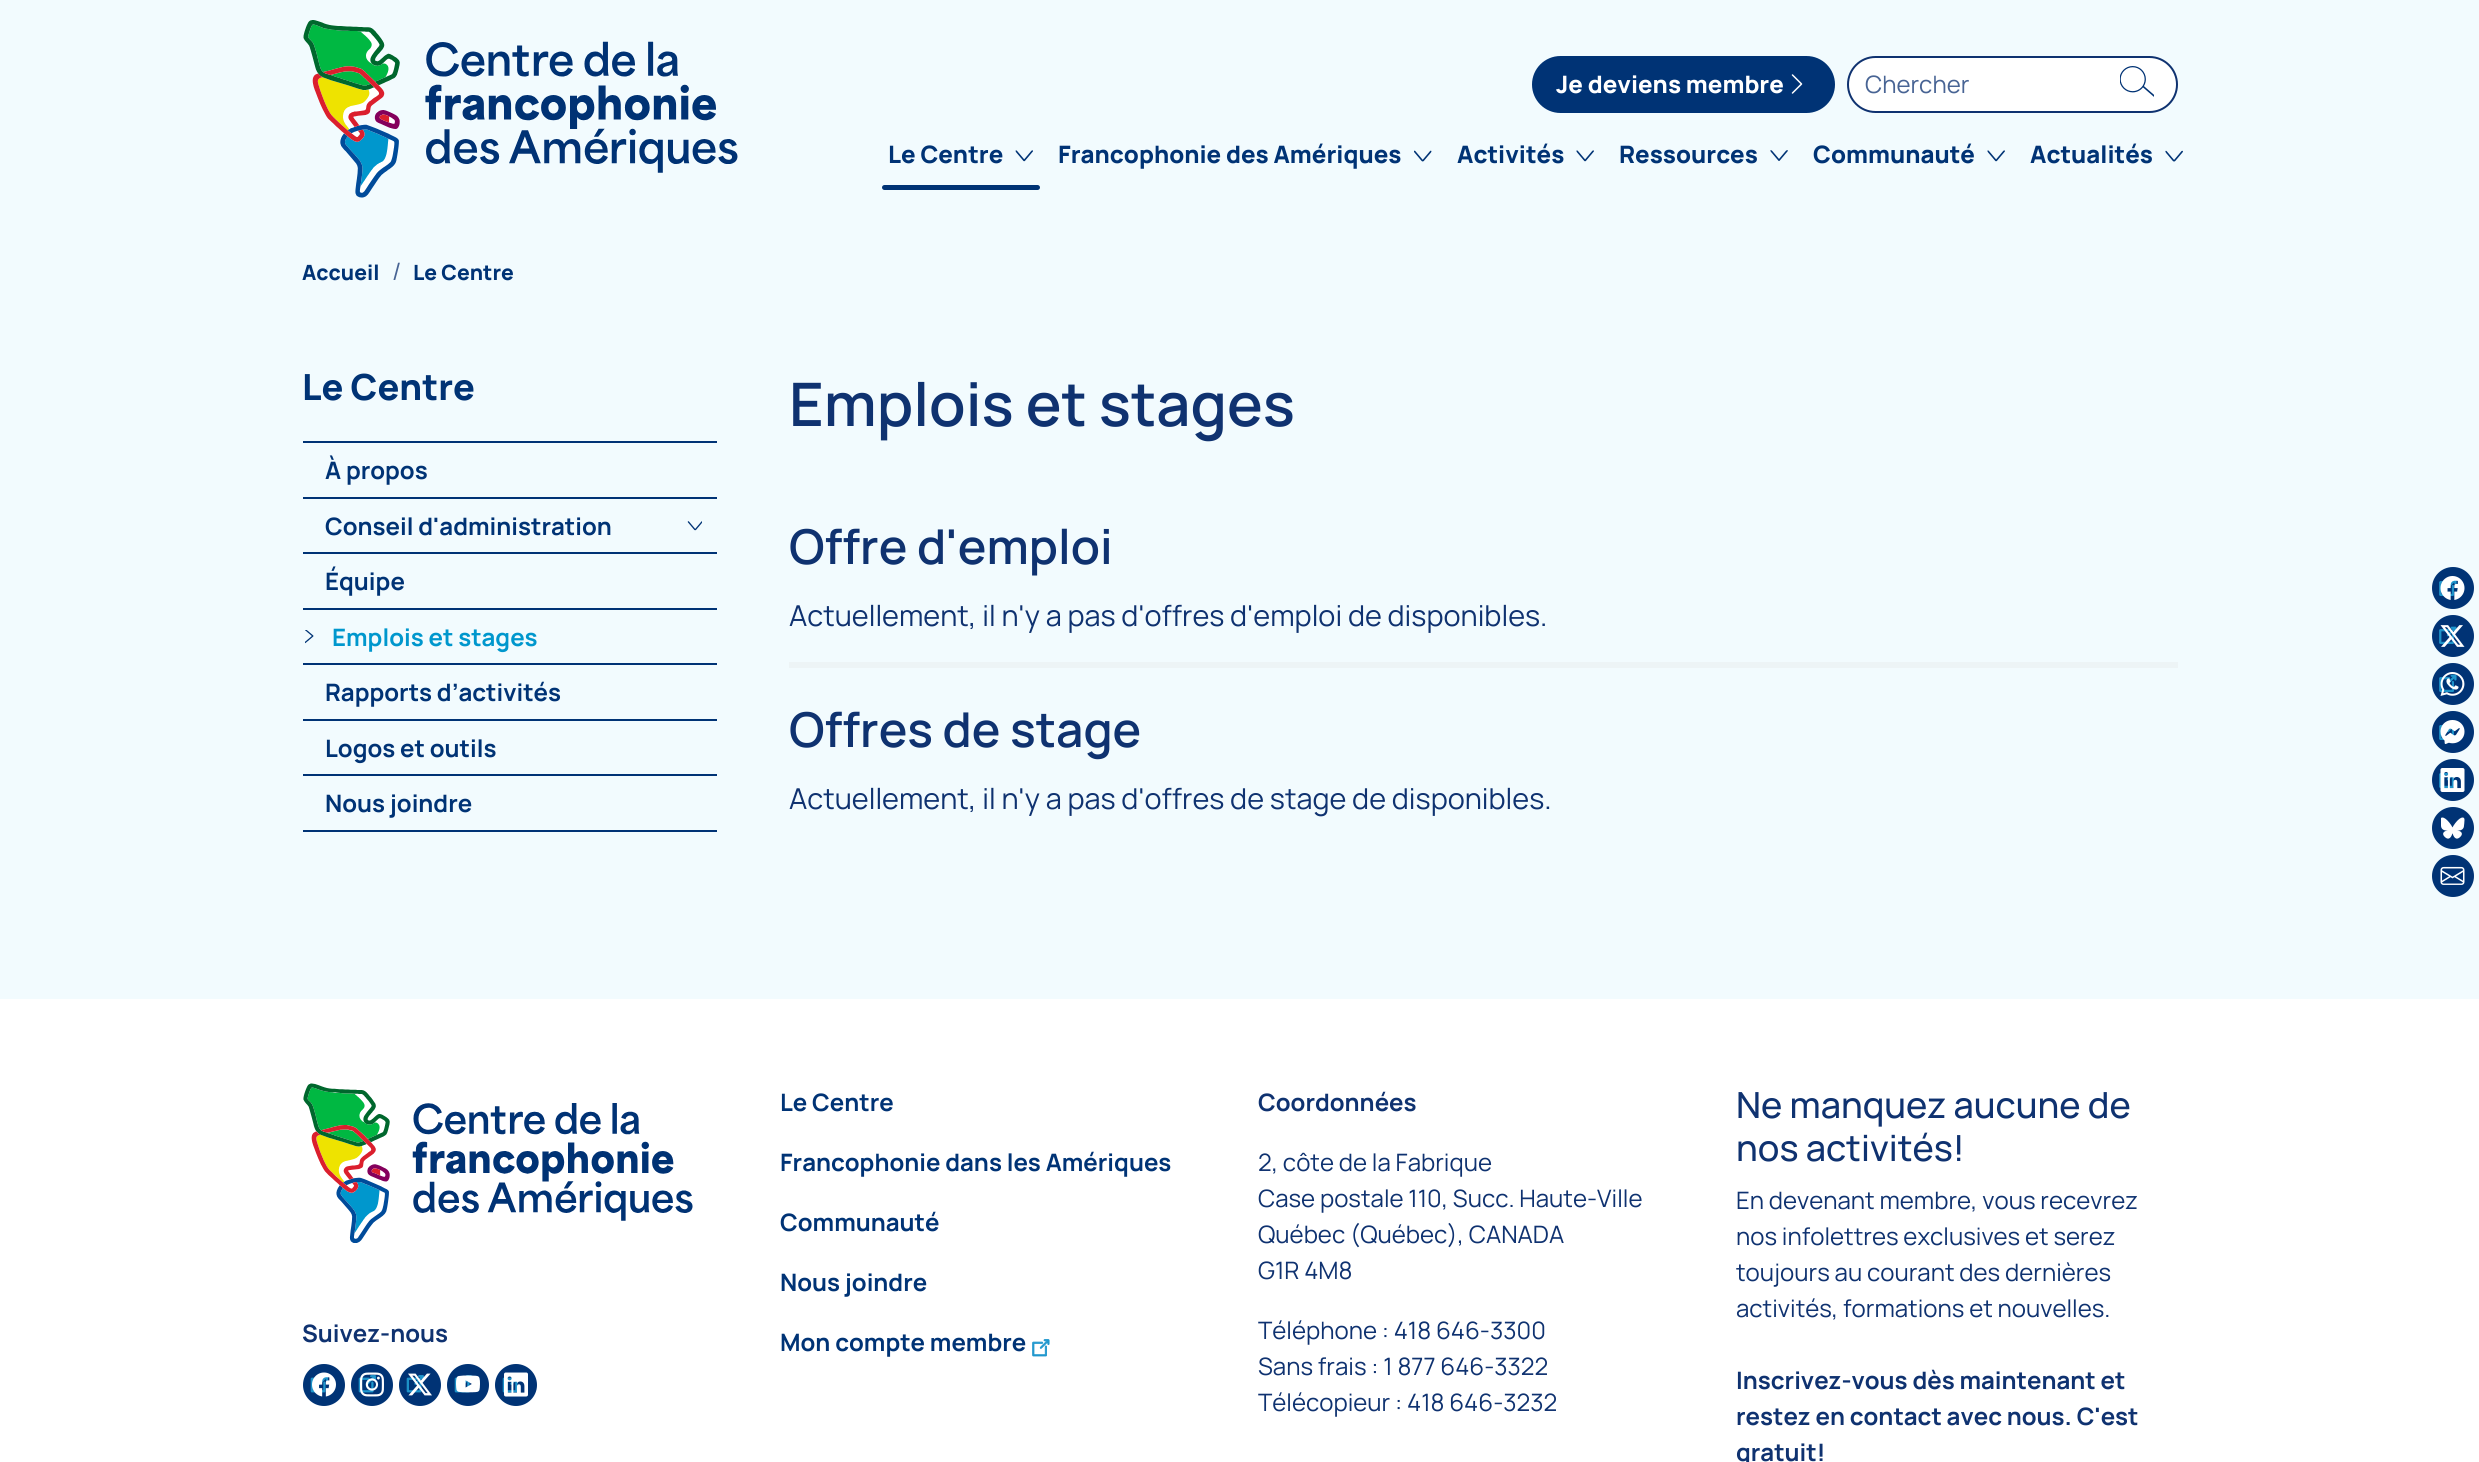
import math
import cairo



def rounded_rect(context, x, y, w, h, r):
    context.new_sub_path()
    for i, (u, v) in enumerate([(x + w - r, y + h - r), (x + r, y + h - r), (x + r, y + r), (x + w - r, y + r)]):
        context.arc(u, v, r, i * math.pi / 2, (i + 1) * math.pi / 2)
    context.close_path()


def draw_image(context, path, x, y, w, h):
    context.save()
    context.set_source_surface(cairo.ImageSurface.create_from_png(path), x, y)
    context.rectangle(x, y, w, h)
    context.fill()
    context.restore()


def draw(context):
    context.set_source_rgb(242 / 255, 251 / 255, 254 / 255)
    context.paint()
    draw_image(context, "images/1.png", 303, 20, 435, 178)
    context.set_source_rgb(0, 51 / 255, 117 / 255)
    rounded_rect(context, 1533, 57, 301, 55, 27.5)
    context.fill_preserve()
    context.stroke()
    draw_image(context, "images/2.png", 1791, 74, 12, 20)
    context.set_source_rgb(1, 1, 1)
    rounded_rect(context, 1848, 57, 329, 55, 27.5)
    context.fill_preserve()
    context.set_source_rgb(15 / 255, 50 / 255, 112 / 255)
    context.stroke()
    draw_image(context, "images/3.png", 2120, 66, 34, 31)
    draw_image(context, "images/4.png", 1015, 150, 18, 12)
    context.set_source_rgb(0, 51 / 255, 117 / 255)
    rounded_rect(context, 882, 185, 158, 5, 2.5)
    context.fill()
    draw_image(context, "images/5.png", 1414, 150, 18, 12)
    draw_image(context, "images/6.png", 1576, 150, 18, 12)
    draw_image(context, "images/7.png", 1770, 150, 18, 11)
    draw_image(context, "images/6.png", 1987, 150, 18, 12)
    draw_image(context, "images/8.png", 2165, 150, 18, 12)
    context.rectangle(303, 441, 414, 2)
    context.fill()
    context.rectangle(303, 497, 414, 2)
    context.fill()
    draw_image(context, "images/9.png", 687, 521, 15, 10)
    context.rectangle(303, 552, 414, 2)
    context.fill()
    context.rectangle(303, 608, 414, 2)
    context.fill()
    draw_image(context, "images/10.png", 305, 630, 9, 14)
    context.rectangle(303, 663, 414, 2)
    context.fill()
    context.rectangle(303, 719, 414, 2)
    context.fill()
    context.rectangle(303, 830, 414, 2)
    context.fill()
    context.rectangle(303, 774, 414, 2)
    context.fill()
    context.set_source_rgb(237 / 255, 244 / 255, 246 / 255)
    context.rectangle(789, 662, 1389, 6)
    context.fill()
    context.set_source_rgb(0, 51 / 255, 117 / 255)
    context.arc(2453, 588, 20, 0, 2 * math.pi)
    context.fill_preserve()
    context.stroke()
    draw_image(context, "images/12.png", 2439, 580, 18, 16)
    draw_image(context, "images/11.png", 2440, 576, 25, 24)
    context.arc(2453, 636, 20, 0, 2 * math.pi)
    context.fill_preserve()
    context.stroke()
    draw_image(context, "images/14.png", 2439, 626, 18, 18)
    draw_image(context, "images/13.png", 2440, 625, 25, 22)
    context.arc(2453, 684, 20, 0, 2 * math.pi)
    context.fill_preserve()
    context.stroke()
    draw_image(context, "images/14.png", 2439, 674, 18, 18)
    draw_image(context, "images/15.png", 2440, 672, 25, 24)
    context.arc(2453, 732, 20, 0, 2 * math.pi)
    context.fill_preserve()
    context.stroke()
    draw_image(context, "images/17.png", 2439, 725, 15, 15)
    draw_image(context, "images/16.png", 2440, 720, 25, 24)
    context.arc(2453, 780, 20, 0, 2 * math.pi)
    context.fill_preserve()
    context.stroke()
    draw_image(context, "images/19.png", 2439, 773, 18, 15)
    draw_image(context, "images/18.png", 2440, 768, 25, 24)
    context.arc(2453, 828, 20, 0, 2 * math.pi)
    context.fill_preserve()
    context.stroke()
    draw_image(context, "images/20.png", 2441, 817, 24, 22)
    context.arc(2453, 876, 20, 0, 2 * math.pi)
    context.fill_preserve()
    context.stroke()
    draw_image(context, "images/21.png", 2440, 866, 25, 19)
    context.set_source_rgb(1, 1, 1)
    context.rectangle(0, 999, 2479, 463)
    context.fill()
    draw_image(context, "images/22.png", 303, 1083, 390, 160)
    context.set_source_rgb(0, 51 / 255, 117 / 255)
    context.arc(324, 1385, 20, 0, 2 * math.pi)
    context.fill_preserve()
    context.stroke()
    draw_image(context, "images/24.png", 310, 1377, 18, 16)
    draw_image(context, "images/23.png", 312, 1372, 24, 25)
    context.arc(372, 1385, 20, 0, 2 * math.pi)
    context.fill_preserve()
    context.stroke()
    draw_image(context, "images/26.png", 358, 1375, 18, 18)
    draw_image(context, "images/25.png", 360, 1372, 24, 25)
    context.arc(420, 1385, 20, 0, 2 * math.pi)
    context.fill_preserve()
    context.stroke()
    draw_image(context, "images/26.png", 406, 1375, 18, 18)
    draw_image(context, "images/27.png", 408, 1373, 24, 23)
    context.arc(468, 1385, 20, 0, 2 * math.pi)
    context.fill_preserve()
    context.stroke()
    draw_image(context, "images/26.png", 454, 1375, 18, 18)
    draw_image(context, "images/28.png", 456, 1375, 24, 18)
    context.arc(516, 1385, 20, 0, 2 * math.pi)
    context.fill_preserve()
    context.stroke()
    draw_image(context, "images/30.png", 502, 1377, 16, 16)
    draw_image(context, "images/29.png", 504, 1372, 24, 25)
    draw_image(context, "images/31.png", 1032, 1339, 18, 18)
    context.select_font_face("Manrope ExtraBold")
    context.set_font_size(24)
    context.set_source_rgb(1, 1, 1)
    context.move_to(1556, 93)
    context.show_text("Je deviens membre")
    context.select_font_face("Manrope")
    context.set_source_rgb(72 / 255, 100 / 255, 148 / 255)
    context.move_to(1865, 93)
    context.show_text("Chercher")
    context.select_font_face("Manrope ExtraBold")
    context.set_source_rgb(0, 51 / 255, 117 / 255)
    context.move_to(888, 163)
    context.show_text("Le Centre")
    context.move_to(1058, 163)
    context.show_text("Francophonie des Amériques")
    context.move_to(1457, 163)
    context.show_text("Activités")
    context.move_to(1619, 163)
    context.show_text("Ressources")
    context.move_to(1813, 163)
    context.show_text("Communauté")
    context.move_to(2030, 163)
    context.show_text("Actualités")
    context.set_font_size(21)
    context.move_to(302, 280)
    context.show_text("Accueil")
    context.select_font_face("Manrope")
    context.set_font_size(24)
    context.set_source_rgb(72 / 255, 100 / 255, 148 / 255)
    context.move_to(392, 280)
    context.show_text("/")
    context.select_font_face("Manrope ExtraBold")
    context.set_font_size(21)
    context.set_source_rgb(0, 51 / 255, 117 / 255)
    context.move_to(413, 280)
    context.show_text("Le Centre")
    context.set_font_size(36)
    context.move_to(302, 400)
    context.show_text("Le Centre")
    context.select_font_face("Manrope", cairo.FontSlant.NORMAL, cairo.FontWeight.BOLD)
    context.set_font_size(24)
    context.move_to(325, 479)
    context.show_text("À propos")
    context.move_to(325, 535)
    context.show_text("Conseil d'administration")
    context.move_to(325, 590)
    context.show_text("Équipe")
    context.set_source_rgb(0, 151 / 255, 205 / 255)
    context.move_to(332, 646)
    context.show_text("Emplois et stages")
    context.set_source_rgb(0, 51 / 255, 117 / 255)
    context.move_to(325, 701)
    context.show_text("Rapports d’activités")
    context.move_to(325, 757)
    context.show_text("Logos et outils")
    context.move_to(325, 812)
    context.show_text("Nous joindre")
    context.select_font_face("Manrope SemiBold")
    context.set_font_size(60)
    context.set_source_rgb(15 / 255, 50 / 255, 112 / 255)
    context.move_to(789, 426)
    context.show_text("Emplois et stages")
    context.set_font_size(48)
    context.move_to(789, 564)
    context.show_text("Offre d'emploi")
    context.select_font_face("Manrope")
    context.set_font_size(28.8)
    context.move_to(789, 626)
    context.show_text("Actuellement, il n'y a pas d'offres d'emploi de disponibles.")
    context.select_font_face("Manrope SemiBold")
    context.set_font_size(48)
    context.move_to(789, 747)
    context.show_text("Offres de stage")
    context.select_font_face("Manrope")
    context.set_font_size(28.8)
    context.move_to(789, 809)
    context.show_text("Actuellement, il n'y a pas d'offres de stage de disponibles.")
    context.select_font_face("Manrope", cairo.FontSlant.NORMAL, cairo.FontWeight.BOLD)
    context.set_font_size(24)
    context.move_to(302, 1342)
    context.show_text("Suivez-nous")
    context.set_source_rgb(0, 51 / 255, 117 / 255)
    context.move_to(780, 1111)
    context.show_text("Le Centre")
    context.move_to(780, 1171)
    context.show_text("Francophonie dans les Amériques")
    context.move_to(780, 1231)
    context.show_text("Communauté")
    context.move_to(780, 1291)
    context.show_text("Nous joindre")
    context.move_to(780, 1351)
    context.show_text("Mon compte membre")
    context.set_source_rgb(15 / 255, 50 / 255, 112 / 255)
    context.move_to(1258, 1111)
    context.show_text("Coordonnées")
    context.select_font_face("Manrope")
    context.move_to(1258, 1171)
    context.show_text("2, côte de la Fabrique")
    context.move_to(1258, 1207)
    context.show_text("Case postale 110, Succ. Haute-Ville")
    context.move_to(1258, 1243)
    context.show_text("Québec (Québec), CANADA")
    context.move_to(1258, 1279)
    context.show_text("G1R 4M8")
    context.move_to(1258, 1339)
    context.show_text("Téléphone : 418 646-3300")
    context.move_to(1258, 1375)
    context.show_text("Sans frais : 1 877 646-3322")
    context.move_to(1258, 1411)
    context.show_text("Télécopieur : 418 646-3232")
    context.select_font_face("Manrope Medium")
    context.set_font_size(36)
    context.move_to(1736, 1118)
    context.show_text("Ne manquez aucune de")
    context.move_to(1736, 1161)
    context.show_text("nos activités!")
    context.select_font_face("Manrope")
    context.set_font_size(24)
    context.move_to(1736, 1209)
    context.show_text("En devenant membre, vous recevrez")
    context.move_to(1736, 1245)
    context.show_text("nos infolettres exclusives et serez")
    context.move_to(1736, 1281)
    context.show_text("toujours au courant des dernières")
    context.move_to(1736, 1317)
    context.show_text("activités, formations et nouvelles.")
    context.select_font_face("Manrope", cairo.FontSlant.NORMAL, cairo.FontWeight.BOLD)
    context.move_to(1736, 1389)
    context.show_text("Inscrivez-vous dès maintenant et")
    context.move_to(1736, 1425)
    context.show_text("restez en contact avec nous. C'est")
    context.move_to(1736, 1461)
    context.show_text("gratuit!")


surface = cairo.ImageSurface(cairo.Format.RGB24, 2479, 1462)
context = cairo.Context(surface)
options = cairo.FontOptions()
options.set_hint_metrics(cairo.HintMetrics.OFF)
options.set_hint_style(cairo.HintStyle.NONE)
context.set_font_options(options)
context.set_miter_limit(4)
draw(context)
surface.write_to_png("out.png")
